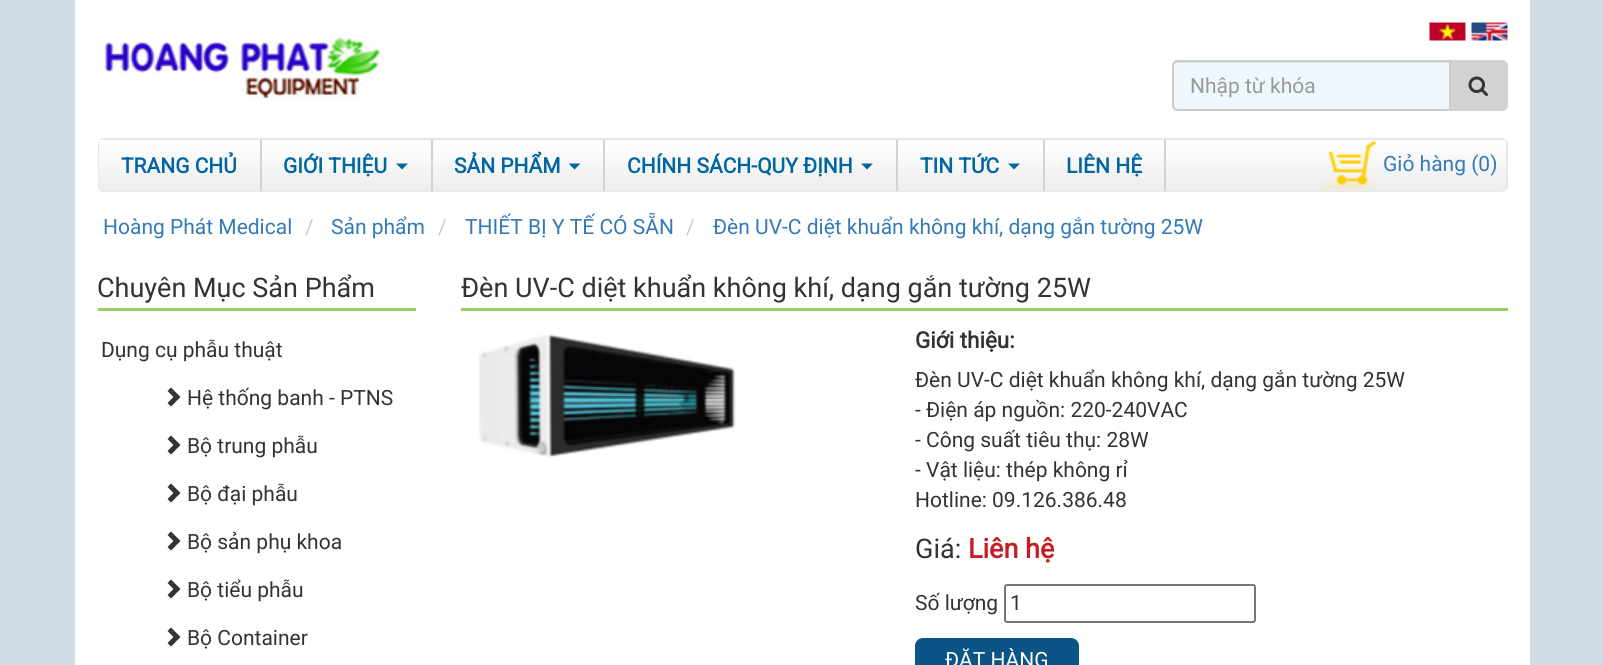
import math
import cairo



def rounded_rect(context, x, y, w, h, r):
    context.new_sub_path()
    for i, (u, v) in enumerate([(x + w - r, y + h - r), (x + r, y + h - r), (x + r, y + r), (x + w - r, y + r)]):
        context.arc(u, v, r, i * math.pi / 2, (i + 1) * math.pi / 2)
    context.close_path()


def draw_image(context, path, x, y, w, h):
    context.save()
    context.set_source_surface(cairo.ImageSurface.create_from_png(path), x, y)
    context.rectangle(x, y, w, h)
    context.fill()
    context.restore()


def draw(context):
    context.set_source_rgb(209 / 255, 220 / 255, 228 / 255)
    context.paint()
    context.set_source_rgb(1, 1, 1)
    context.rectangle(75, 0, 1455, 665)
    context.fill()
    draw_image(context, "images/1.png", 99, 32, 285, 69)
    draw_image(context, "images/2.png", 1429, 22, 37, 19)
    draw_image(context, "images/3.png", 1471, 22, 37, 19)
    context.set_source_rgb(210 / 255, 210 / 255, 210 / 255)
    context.new_path()
    context.move_to(1450, 61)
    context.line_to(1502, 61)
    context.curve_to(1505, 61, 1507, 63, 1507, 66)
    context.line_to(1507, 105)
    context.curve_to(1507, 108, 1505, 110, 1502, 110)
    context.line_to(1450, 110)
    context.close_path()
    context.fill_preserve()
    context.stroke()
    context.set_source_rgb(237 / 255, 247 / 255, 252 / 255)
    context.new_path()
    context.move_to(1178, 60)
    context.line_to(1451, 60)
    context.line_to(1451, 111)
    context.line_to(1178, 111)
    context.curve_to(1174.5, 111, 1172, 108.5, 1172, 105)
    context.line_to(1172, 66)
    context.curve_to(1172, 62.5, 1174.5, 60, 1178, 60)
    context.close_path()
    context.fill()
    context.set_source_rgb(219 / 255, 228 / 255, 233 / 255)
    context.new_path()
    context.move_to(1178, 63)
    context.line_to(1449, 63)
    context.line_to(1449, 62)
    context.line_to(1178, 62)
    context.curve_to(1175, 62, 1173, 64, 1173, 67)
    context.line_to(1173, 68)
    context.curve_to(1173, 65, 1175, 63, 1178, 63)
    context.close_path()
    context.fill()
    context.new_path()
    context.move_to(1178, 61)
    context.line_to(1450, 61)
    context.line_to(1450, 110)
    context.line_to(1178, 110)
    context.curve_to(1175, 110, 1173, 108, 1173, 105)
    context.line_to(1173, 66)
    context.curve_to(1173, 63, 1175, 61, 1178, 61)
    context.close_path()
    context.set_source_rgb(204 / 255, 204 / 255, 204 / 255)
    context.stroke()
    draw_image(context, "images/4.png", 1468, 76, 20, 20)
    rounded_rect(context, 99, 139, 1408, 52, 5)
    context.set_source_rgb(231 / 255, 231 / 255, 231 / 255)
    context.stroke()
    gradient = cairo.LinearGradient(803, 139, 803, 191)
    gradient.add_color_stop_rgba(0, 1, 1, 1, 1)
    gradient.add_color_stop_rgba(1, 237 / 255, 237 / 255, 237 / 255, 1)
    context.set_source(gradient)
    context.rectangle(99, 140, 1407, 51)
    context.fill()
    context.set_source_rgb(210 / 255, 210 / 255, 210 / 255)
    context.rectangle(260, 140, 2, 51)
    context.fill()
    context.rectangle(431, 140, 2, 51)
    context.fill()
    context.set_source_rgb(0, 102 / 255, 161 / 255)
    context.new_path()
    context.move_to(396, 163.5)
    context.line_to(408, 163.5)
    context.line_to(402, 169.5)
    context.close_path()
    context.fill()
    context.set_source_rgb(210 / 255, 210 / 255, 210 / 255)
    context.rectangle(603, 140, 2, 51)
    context.fill()
    context.set_source_rgb(0, 102 / 255, 161 / 255)
    context.new_path()
    context.move_to(568.5, 163.5)
    context.line_to(580.5, 163.5)
    context.line_to(574.5, 169.5)
    context.close_path()
    context.fill()
    context.set_source_rgb(210 / 255, 210 / 255, 210 / 255)
    context.rectangle(896, 140, 2, 51)
    context.fill()
    context.set_source_rgb(0, 102 / 255, 161 / 255)
    context.new_path()
    context.move_to(861, 163.5)
    context.line_to(873, 163.5)
    context.line_to(867, 169.5)
    context.close_path()
    context.fill()
    context.set_source_rgb(210 / 255, 210 / 255, 210 / 255)
    context.rectangle(1043, 140, 2, 51)
    context.fill()
    context.set_source_rgb(0, 102 / 255, 161 / 255)
    context.new_path()
    context.move_to(1008, 163.5)
    context.line_to(1020, 163.5)
    context.line_to(1014, 169.5)
    context.close_path()
    context.fill()
    context.set_source_rgb(210 / 255, 210 / 255, 210 / 255)
    context.rectangle(1164, 140, 2, 51)
    context.fill()
    draw_image(context, "images/5.png", 1320, 140, 56, 51)
    context.set_source_rgb(156 / 255, 204 / 255, 101 / 255)
    context.rectangle(98, 308, 318, 3)
    context.fill()
    context.set_source_rgb(51 / 255, 51 / 255, 51 / 255)
    context.new_path()
    context.move_to(180.5, 397)
    context.line_to(171, 406.5)
    context.line_to(167.5, 403)
    context.line_to(173.5, 397)
    context.line_to(167.5, 391)
    context.line_to(171, 387.5)
    context.close_path()
    context.fill()
    context.new_path()
    context.move_to(180.5, 445)
    context.line_to(171, 454.5)
    context.line_to(167.5, 451)
    context.line_to(173.5, 445)
    context.line_to(167.5, 439)
    context.line_to(171, 435.5)
    context.close_path()
    context.fill()
    context.new_path()
    context.move_to(180.5, 493)
    context.line_to(171, 502.5)
    context.line_to(167.5, 499)
    context.line_to(173.5, 493)
    context.line_to(167.5, 487)
    context.line_to(171, 483.5)
    context.close_path()
    context.fill()
    context.new_path()
    context.move_to(180.5, 541)
    context.line_to(171, 550.5)
    context.line_to(167.5, 547)
    context.line_to(173.5, 541)
    context.line_to(167.5, 535)
    context.line_to(171, 531.5)
    context.close_path()
    context.fill()
    context.new_path()
    context.move_to(180.5, 589)
    context.line_to(171, 598.5)
    context.line_to(167.5, 595)
    context.line_to(173.5, 589)
    context.line_to(167.5, 583)
    context.line_to(171, 579.5)
    context.close_path()
    context.fill()
    context.new_path()
    context.move_to(180.5, 637)
    context.line_to(171, 646.5)
    context.line_to(167.5, 643)
    context.line_to(173.5, 637)
    context.line_to(167.5, 631)
    context.line_to(171, 627.5)
    context.close_path()
    context.fill()
    context.set_source_rgb(156 / 255, 204 / 255, 101 / 255)
    context.rectangle(461, 308, 1047, 3)
    context.fill()
    draw_image(context, "images/6.png", 478, 334, 258, 124)
    rounded_rect(context, 1005, 585, 250, 37, 2)
    context.set_source_rgb(118 / 255, 118 / 255, 118 / 255)
    context.stroke()
    context.set_source_rgb(11 / 255, 85 / 255, 134 / 255)
    rounded_rect(context, 915, 638, 164, 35, 8)
    context.fill()
    context.select_font_face("Roboto")
    context.set_font_size(21)
    context.set_source_rgb(153 / 255, 153 / 255, 153 / 255)
    context.move_to(1190, 93)
    context.show_text("Nhập từ khóa")
    context.select_font_face("Roboto", cairo.FontSlant.NORMAL, cairo.FontWeight.BOLD)
    context.set_source_rgb(0, 102 / 255, 161 / 255)
    context.move_to(121, 173)
    context.show_text("TRANG CHỦ")
    context.move_to(283, 173)
    context.show_text("GIỚI THIỆU")
    context.move_to(454, 173)
    context.show_text("SẢN PHẨM")
    context.move_to(627, 173)
    context.show_text("CHÍNH SÁCH-QUY ĐỊNH")
    context.move_to(920, 173)
    context.show_text("TIN TỨC")
    context.move_to(1066, 173)
    context.show_text("LIÊN HỆ")
    context.select_font_face("Roboto")
    context.set_source_rgb(51 / 255, 122 / 255, 183 / 255)
    context.move_to(1383, 171)
    context.show_text("Giỏ hàng (0)")
    context.move_to(103, 234)
    context.show_text("Hoàng Phát Medical")
    context.set_source_rgb(204 / 255, 204 / 255, 204 / 255)
    context.move_to(305, 234)
    context.show_text("/")
    context.set_source_rgb(51 / 255, 122 / 255, 183 / 255)
    context.move_to(331, 234)
    context.show_text("Sản phẩm")
    context.set_source_rgb(204 / 255, 204 / 255, 204 / 255)
    context.move_to(438, 234)
    context.show_text("/")
    context.set_source_rgb(51 / 255, 122 / 255, 183 / 255)
    context.move_to(465, 234)
    context.show_text("THIẾT BỊ Y TẾ CÓ SẴN")
    context.set_source_rgb(204 / 255, 204 / 255, 204 / 255)
    context.move_to(686, 234)
    context.show_text("/")
    context.set_source_rgb(51 / 255, 122 / 255, 183 / 255)
    context.move_to(713, 234)
    context.show_text("Đèn UV-C diệt khuẩn không khí, dạng gắn tường 25W")
    context.set_font_size(27)
    context.set_source_rgb(51 / 255, 51 / 255, 51 / 255)
    context.move_to(97, 297)
    context.show_text("Chuyên Mục Sản Phẩm")
    context.set_font_size(21)
    context.move_to(101, 357)
    context.show_text("Dụng cụ phẫu thuật")
    context.move_to(187, 405)
    context.show_text("Hệ thống banh - PTNS")
    context.move_to(187, 453)
    context.show_text("Bộ trung phẫu")
    context.move_to(187, 501)
    context.show_text("Bộ đại phẫu")
    context.move_to(187, 549)
    context.show_text("Bộ sản phụ khoa")
    context.move_to(187, 597)
    context.show_text("Bộ tiểu phẫu")
    context.move_to(187, 645)
    context.show_text("Bộ Container")
    context.set_font_size(27)
    context.move_to(461, 297)
    context.show_text("Đèn UV-C diệt khuẩn không khí, dạng gắn tường 25W")
    context.select_font_face("Roboto", cairo.FontSlant.NORMAL, cairo.FontWeight.BOLD)
    context.set_font_size(22.5)
    context.move_to(915, 348)
    context.show_text("Giới thiệu:")
    context.select_font_face("Roboto")
    context.set_font_size(21)
    context.move_to(915, 387)
    context.show_text("Đèn UV-C diệt khuẩn không khí, dạng gắn tường 25W")
    context.move_to(915, 417)
    context.show_text("- Điện áp nguồn: 220-240VAC")
    context.move_to(915, 447)
    context.show_text("- Công suất tiêu thụ: 28W")
    context.move_to(915, 477)
    context.show_text("- Vật liệu: thép không rỉ")
    context.move_to(915, 507)
    context.show_text("Hotline: 09.126.386.48")
    context.set_font_size(27)
    context.move_to(915, 558)
    context.show_text("Giá:")
    context.select_font_face("Roboto", cairo.FontSlant.NORMAL, cairo.FontWeight.BOLD)
    context.set_source_rgb(197 / 255, 29 / 255, 33 / 255)
    context.move_to(968, 558)
    context.show_text("Liên hệ")
    context.select_font_face("Roboto")
    context.set_font_size(21)
    context.set_source_rgb(51 / 255, 51 / 255, 51 / 255)
    context.move_to(915, 610)
    context.show_text("Số lượng")
    context.move_to(1010, 610)
    context.show_text("1")
    context.set_source_rgb(1, 1, 1)
    context.move_to(945, 667)
    context.show_text("ĐẶT HÀNG")


surface = cairo.ImageSurface(cairo.Format.RGB24, 1603, 665)
context = cairo.Context(surface)
options = cairo.FontOptions()
options.set_hint_metrics(cairo.HintMetrics.OFF)
options.set_hint_style(cairo.HintStyle.NONE)
context.set_font_options(options)
context.set_miter_limit(4)
draw(context)
surface.write_to_png("out.png")
